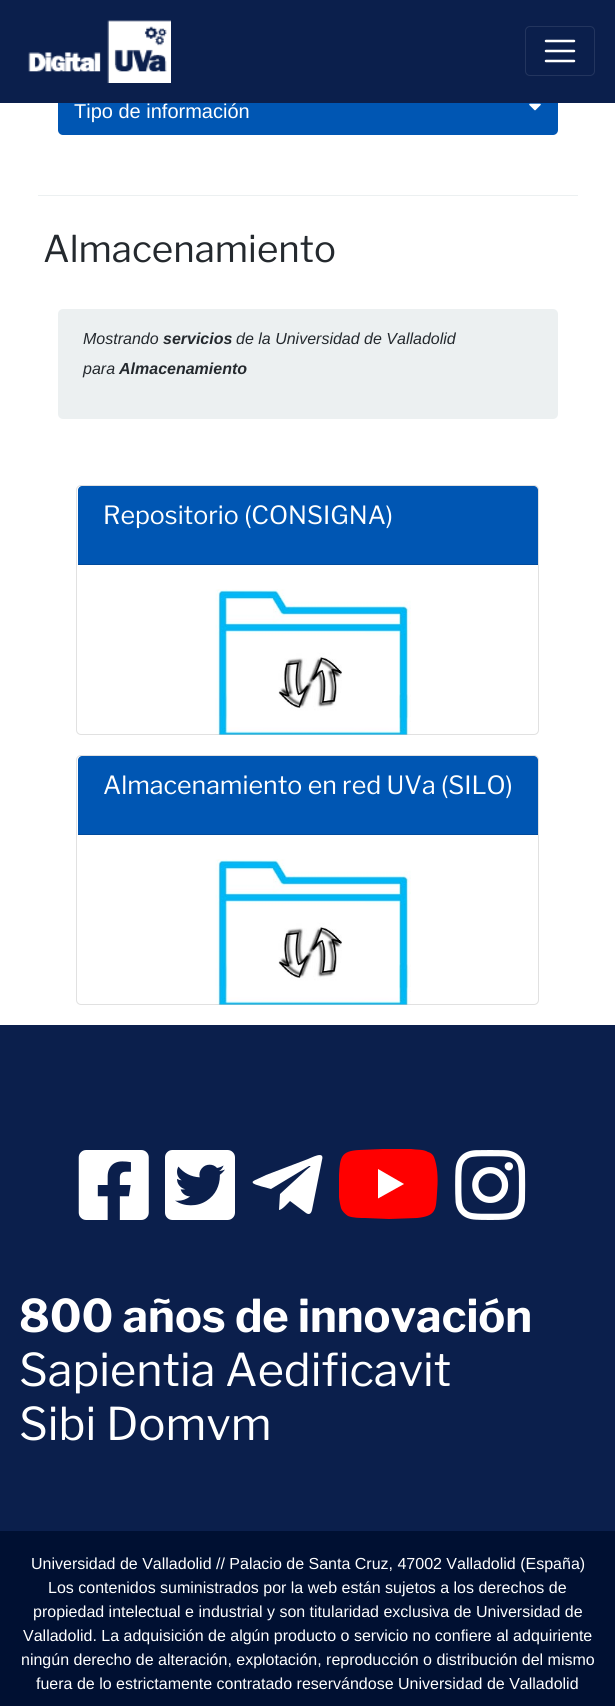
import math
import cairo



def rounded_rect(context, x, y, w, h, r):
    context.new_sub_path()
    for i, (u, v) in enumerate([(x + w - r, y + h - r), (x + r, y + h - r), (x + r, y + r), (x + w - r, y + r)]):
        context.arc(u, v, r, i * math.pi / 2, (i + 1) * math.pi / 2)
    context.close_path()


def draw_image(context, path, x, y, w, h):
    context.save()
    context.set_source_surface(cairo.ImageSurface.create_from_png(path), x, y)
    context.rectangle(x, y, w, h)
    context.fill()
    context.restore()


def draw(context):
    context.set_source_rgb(1, 1, 1)
    context.paint()
    context.set_source_rgb(0, 86 / 255, 179 / 255)
    rounded_rect(context, 58, 88, 500, 47, 5)
    context.fill()
    context.set_source_rgb(11 / 255, 31 / 255, 76 / 255)
    context.rectangle(0, 0, 615, 103)
    context.fill()
    draw_image(context, "images/1.png", 28, 20, 143, 63)
    rounded_rect(context, 525.5, 26.5, 69, 49, 4.5)
    context.set_source_rgb(35 / 255, 53 / 255, 94 / 255)
    context.set_line_width(1)
    context.stroke()
    context.new_path()
    context.move_to(546, 41)
    context.line_to(574, 41)
    context.move_to(546, 51)
    context.line_to(574, 51)
    context.move_to(546, 61)
    context.line_to(574, 61)
    context.set_source_rgb(1, 1, 1)
    context.set_line_width(2.5)
    context.set_line_cap(cairo.LineCap.ROUND)
    context.stroke()
    draw_image(context, "images/2.png", 529, 103, 12, 8)
    context.set_source_rgb(236 / 255, 240 / 255, 241 / 255)
    context.rectangle(38, 195, 540, 1)
    context.fill()
    rounded_rect(context, 58, 309, 500, 110, 5)
    context.fill()
    draw_image(context, "images/3.png", 215, 589, 196, 146)
    rounded_rect(context, 76.5, 485.5, 462, 249, 4.5)
    context.set_source_rgba(0, 0, 0, 0.12)
    context.set_line_width(1)
    context.set_line_cap(cairo.LineCap.BUTT)
    context.stroke()
    context.set_source_rgb(0, 86 / 255, 179 / 255)
    context.new_path()
    context.move_to(82, 486)
    context.line_to(534, 486)
    context.curve_to(536, 486, 538, 488, 538, 490)
    context.line_to(538, 565)
    context.line_to(78, 565)
    context.line_to(78, 490)
    context.curve_to(78, 488, 80, 486, 82, 486)
    context.close_path()
    context.fill()
    context.set_source_rgb(0, 75 / 255, 157 / 255)
    context.rectangle(78, 564, 460, 1)
    context.fill()
    draw_image(context, "images/3.png", 215, 859, 196, 146)
    rounded_rect(context, 76.5, 755.5, 462, 249, 4.5)
    context.set_source_rgba(0, 0, 0, 0.12)
    context.stroke()
    context.set_source_rgb(0, 86 / 255, 179 / 255)
    context.new_path()
    context.move_to(82, 756)
    context.line_to(534, 756)
    context.curve_to(536, 756, 538, 758, 538, 760)
    context.line_to(538, 835)
    context.line_to(78, 835)
    context.line_to(78, 760)
    context.curve_to(78, 758, 80, 756, 82, 756)
    context.close_path()
    context.fill()
    context.set_source_rgb(0, 75 / 255, 157 / 255)
    context.rectangle(78, 834, 460, 1)
    context.fill()
    context.set_source_rgb(11 / 255, 31 / 255, 76 / 255)
    context.rectangle(0, 1025, 615, 506)
    context.fill()
    draw_image(context, "images/4.png", 78, 1150, 71, 70)
    draw_image(context, "images/5.png", 165, 1150, 70, 70)
    context.set_source_rgb(1, 1, 1)
    context.new_path()
    context.move_to(322, 1160)
    context.line_to(312, 1210)
    context.curve_to(311, 1214, 309, 1215, 306, 1213)
    context.line_to(290, 1201)
    context.curve_to(288, 1203, 282, 1210, 279, 1210)
    context.line_to(280, 1194)
    context.line_to(305, 1171)
    context.curve_to(308, 1168, 312, 1166, 310, 1166)
    context.line_to(309, 1166)
    context.line_to(271, 1189)
    context.curve_to(268, 1188, 254, 1185, 253, 1183)
    context.curve_to(251, 1181, 256, 1180, 266, 1175)
    context.line_to(308, 1159)
    context.curve_to(311, 1158, 325, 1150, 322, 1160)
    context.close_path()
    context.fill()
    context.save()
    context.rectangle(339, 1149, 99, 70)
    context.clip()
    context.set_source_rgb(1, 0, 0)
    context.new_path()
    context.move_to(435, 1160)
    context.curve_to(434, 1156, 432, 1153, 428, 1152)
    context.curve_to(423, 1149, 417, 1150, 411, 1149)
    context.line_to(383, 1149)
    context.line_to(359, 1150)
    context.curve_to(341, 1151, 340, 1157, 339, 1175)
    context.curve_to(338, 1185, 338, 1197, 341, 1208)
    context.curve_to(342, 1211, 345, 1214, 348, 1216)
    context.curve_to(353, 1218, 360, 1218, 365, 1218)
    context.line_to(389, 1219)
    context.line_to(417, 1218)
    context.curve_to(436, 1216, 436, 1210, 437, 1193)
    context.curve_to(438, 1182, 438, 1170, 435, 1160)
    context.close_path()
    context.fill()
    context.restore()
    draw_image(context, "images/6.png", 455, 1150, 71, 70)
    context.new_path()
    context.move_to(378, 1198.5)
    context.line_to(404, 1184)
    context.line_to(378, 1169)
    context.close_path()
    context.fill()
    context.set_source_rgb(0, 16 / 255, 50 / 255)
    context.rectangle(0, 1531, 615, 175)
    context.fill()
    context.select_font_face("Liberation Sans")
    context.set_font_size(20)
    context.set_source_rgb(1, 1, 1)
    context.move_to(74, 118)
    context.show_text("Tipo de información")
    context.select_font_face("Libre Franklin")
    context.set_font_size(36.75)
    context.set_source_rgb(36 / 255, 41 / 255, 46 / 255)
    context.move_to(43, 262)
    context.show_text("Almacenamiento")
    context.select_font_face("Liberation Sans", cairo.FontSlant.ITALIC)
    context.set_font_size(16)
    context.move_to(83, 344)
    context.show_text("Mostrando")
    context.select_font_face("Liberation Sans", cairo.FontSlant.ITALIC, cairo.FontWeight.BOLD)
    context.move_to(163, 344)
    context.show_text("servicios")
    context.select_font_face("Liberation Sans", cairo.FontSlant.ITALIC)
    context.move_to(236, 344)
    context.show_text("de la Universidad de Valladolid")
    context.move_to(83, 374)
    context.show_text("para")
    context.select_font_face("Liberation Sans", cairo.FontSlant.ITALIC, cairo.FontWeight.BOLD)
    context.move_to(119, 374)
    context.show_text("Almacenamiento")
    context.select_font_face("Libre Franklin")
    context.set_font_size(25)
    context.set_source_rgb(1, 1, 1)
    context.move_to(103, 524)
    context.show_text("Repositorio (CONSIGNA)")
    context.move_to(103, 794)
    context.show_text("Almacenamiento en red UVa (SILO)")
    context.select_font_face("Libre Franklin", cairo.FontSlant.NORMAL, cairo.FontWeight.BOLD)
    context.set_font_size(45)
    context.move_to(19, 1332)
    context.show_text("800 años de innovación")
    context.select_font_face("Libre Franklin")
    context.move_to(19, 1386)
    context.show_text("Sapientia Aedificavit")
    context.move_to(19, 1440)
    context.show_text("Sibi Domvm")
    context.select_font_face("Liberation Sans")
    context.set_font_size(16)
    context.move_to(31, 1569)
    context.show_text("Universidad de Valladolid // Palacio de Santa Cruz, 47002 Valladolid (España)")
    context.move_to(48, 1593)
    context.show_text("Los contenidos suministrados por la web están sujetos a los derechos de")
    context.move_to(33, 1617)
    context.show_text("propiedad intelectual e industrial y son titularidad exclusiva de Universidad de")
    context.move_to(23, 1641)
    context.show_text("Valladolid. La adquisición de algún producto o servicio no confiere al adquiriente")
    context.move_to(21, 1665)
    context.show_text("ningún derecho de alteración, explotación, reproducción o distribución del mismo")
    context.move_to(36, 1689)
    context.show_text("fuera de lo estrictamente contratado reservándose Universidad de Valladolid")


surface = cairo.ImageSurface(cairo.Format.RGB24, 615, 1706)
context = cairo.Context(surface)
options = cairo.FontOptions()
options.set_hint_metrics(cairo.HintMetrics.OFF)
options.set_hint_style(cairo.HintStyle.NONE)
context.set_font_options(options)
context.set_miter_limit(4)
draw(context)
surface.write_to_png("out.png")
